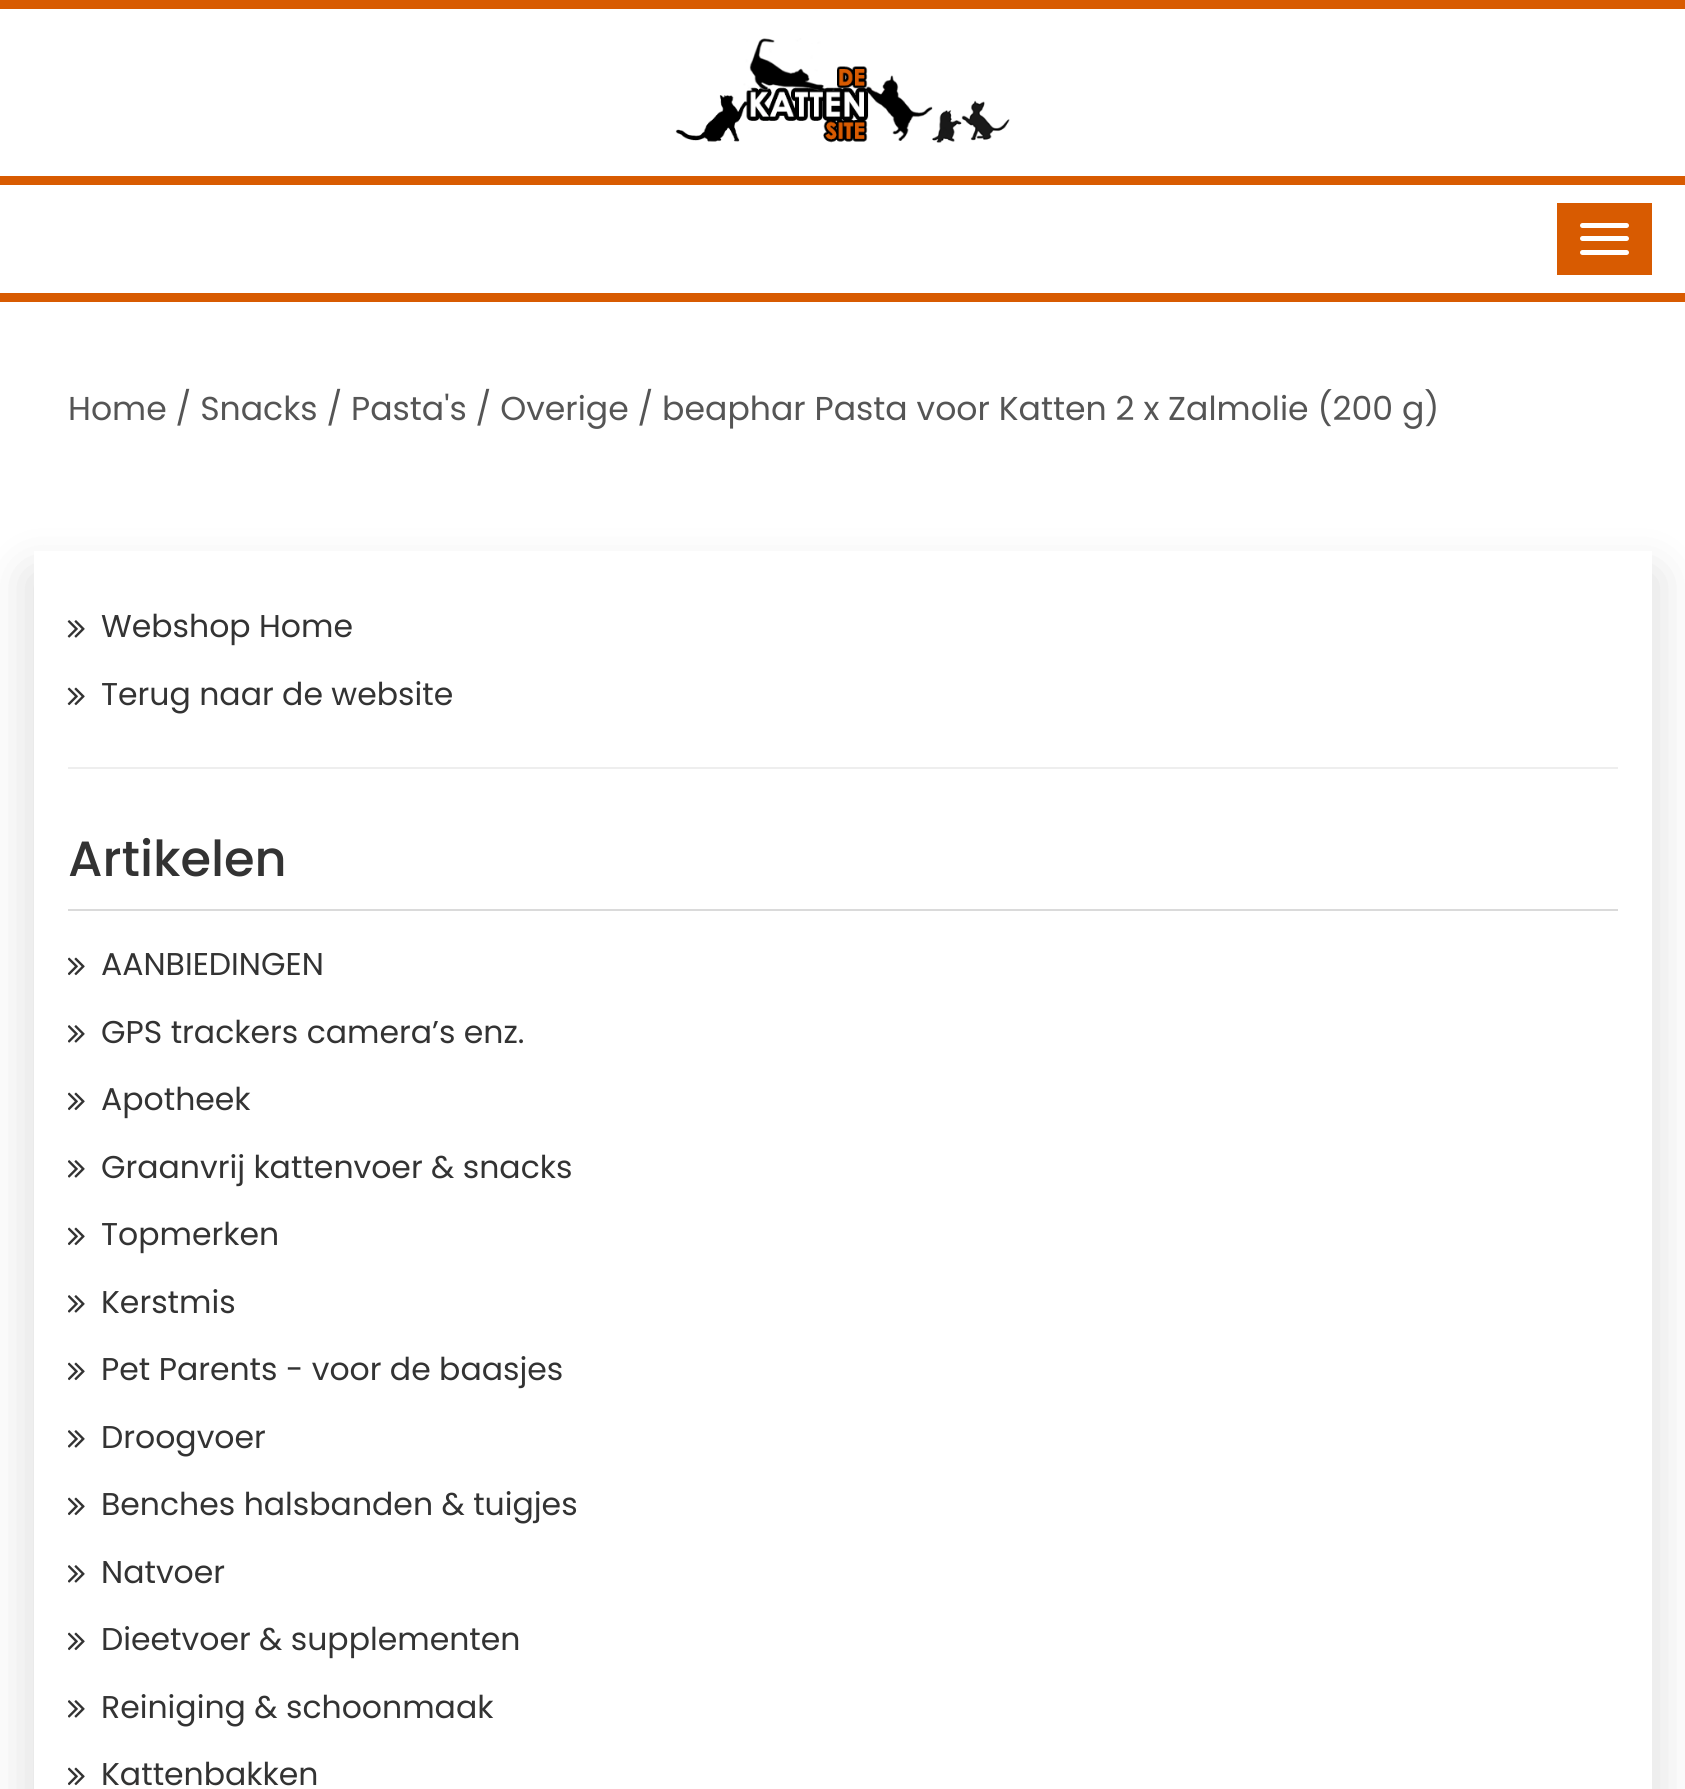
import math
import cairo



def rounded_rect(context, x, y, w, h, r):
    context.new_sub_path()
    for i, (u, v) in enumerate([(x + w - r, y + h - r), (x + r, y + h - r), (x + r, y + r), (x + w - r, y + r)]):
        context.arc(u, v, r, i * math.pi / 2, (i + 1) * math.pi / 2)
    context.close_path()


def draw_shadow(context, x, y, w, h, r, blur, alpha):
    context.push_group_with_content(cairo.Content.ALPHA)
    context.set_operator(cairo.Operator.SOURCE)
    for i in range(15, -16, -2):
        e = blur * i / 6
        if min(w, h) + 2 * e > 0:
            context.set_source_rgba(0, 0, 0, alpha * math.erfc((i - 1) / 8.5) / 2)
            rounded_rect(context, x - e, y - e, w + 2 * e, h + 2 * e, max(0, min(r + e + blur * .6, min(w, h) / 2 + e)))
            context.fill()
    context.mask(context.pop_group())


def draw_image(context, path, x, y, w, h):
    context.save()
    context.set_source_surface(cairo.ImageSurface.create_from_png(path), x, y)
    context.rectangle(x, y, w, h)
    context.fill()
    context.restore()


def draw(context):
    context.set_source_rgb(1, 1, 1)
    context.paint()
    context.set_source_rgb(216 / 255, 91 / 255, 1 / 255)
    context.rectangle(0, 0, 1685, 9)
    context.fill()
    draw_image(context, "images/1.png", 675, 38, 335, 105)
    context.rectangle(0, 176, 1685, 9)
    context.fill()
    context.rectangle(0, 293, 1685, 9)
    context.fill()
    context.rectangle(1557, 203, 95, 72)
    context.fill()
    context.set_source_rgb(1, 1, 1)
    rounded_rect(context, 1580, 223, 49, 5, 2.5)
    context.fill()
    rounded_rect(context, 1580, 236, 49, 5, 2.5)
    context.fill()
    rounded_rect(context, 1580, 250, 49, 5, 2.5)
    context.fill()
    context.save()
    context.set_fill_rule(cairo.FillRule.EVEN_ODD)
    context.new_path()
    context.move_to(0, 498)
    context.line_to(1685, 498)
    context.line_to(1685, 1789)
    context.line_to(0, 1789)
    context.close_path()
    context.move_to(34, 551)
    context.line_to(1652, 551)
    context.line_to(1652, 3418)
    context.line_to(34, 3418)
    context.close_path()
    context.clip()
    context.set_source_rgb(0, 0, 0)
    draw_shadow(context, 29, 574, 1627, 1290, 0, 25, 0.14)
    context.restore()
    draw_image(context, "images/2.png", 67, 620, 18, 18)
    draw_image(context, "images/3.png", 67, 687, 18, 19)
    context.set_source_rgb(238 / 255, 238 / 255, 238 / 255)
    context.rectangle(68, 767, 1550, 2)
    context.fill()
    context.set_source_rgb(218 / 255, 218 / 255, 218 / 255)
    context.rectangle(68, 909, 1550, 2)
    context.fill()
    draw_image(context, "images/4.png", 68, 957, 17, 19)
    draw_image(context, "images/5.png", 68, 1025, 17, 18)
    draw_image(context, "images/4.png", 68, 1092, 17, 19)
    draw_image(context, "images/5.png", 68, 1160, 17, 18)
    draw_image(context, "images/4.png", 68, 1227, 17, 19)
    draw_image(context, "images/5.png", 68, 1295, 17, 18)
    draw_image(context, "images/4.png", 68, 1362, 17, 19)
    draw_image(context, "images/5.png", 68, 1430, 17, 18)
    draw_image(context, "images/4.png", 68, 1497, 17, 19)
    draw_image(context, "images/5.png", 68, 1565, 17, 18)
    draw_image(context, "images/4.png", 68, 1632, 17, 19)
    draw_image(context, "images/5.png", 68, 1700, 17, 18)
    draw_image(context, "images/4.png", 68, 1767, 17, 19)
    context.select_font_face("Poppins")
    context.set_font_size(33.1)
    context.set_source_rgb(85 / 255, 85 / 255, 85 / 255)
    context.move_to(68, 420)
    context.show_text("Home / Snacks / Pasta's / Overige / beaphar Pasta voor Katten 2 x Zalmolie (200 g)")
    context.set_font_size(31.5)
    context.set_source_rgb(51 / 255, 51 / 255, 51 / 255)
    context.move_to(101, 637)
    context.show_text("Webshop Home")
    context.move_to(101, 705)
    context.show_text("Terug naar de website")
    context.select_font_face("Poppins Medium")
    context.set_font_size(49.5)
    context.move_to(68, 876)
    context.show_text("Artikelen")
    context.select_font_face("Poppins")
    context.set_font_size(31.5)
    context.move_to(101, 975)
    context.show_text("AANBIEDINGEN")
    context.move_to(101, 1043)
    context.show_text("GPS trackers camera’s enz.")
    context.move_to(101, 1110)
    context.show_text("Apotheek")
    context.move_to(101, 1178)
    context.show_text("Graanvrij kattenvoer & snacks")
    context.move_to(101, 1245)
    context.show_text("Topmerken")
    context.move_to(101, 1313)
    context.show_text("Kerstmis")
    context.move_to(101, 1380)
    context.show_text("Pet Parents - voor de baasjes")
    context.move_to(101, 1448)
    context.show_text("Droogvoer")
    context.move_to(101, 1515)
    context.show_text("Benches halsbanden & tuigjes")
    context.move_to(101, 1583)
    context.show_text("Natvoer")
    context.move_to(101, 1650)
    context.show_text("Dieetvoer & supplementen")
    context.move_to(101, 1718)
    context.show_text("Reiniging & schoonmaak")
    context.move_to(101, 1785)
    context.show_text("Kattenbakken")


surface = cairo.ImageSurface(cairo.Format.RGB24, 1685, 1789)
context = cairo.Context(surface)
options = cairo.FontOptions()
options.set_hint_metrics(cairo.HintMetrics.OFF)
options.set_hint_style(cairo.HintStyle.NONE)
context.set_font_options(options)
context.set_miter_limit(4)
draw(context)
surface.write_to_png("out.png")
